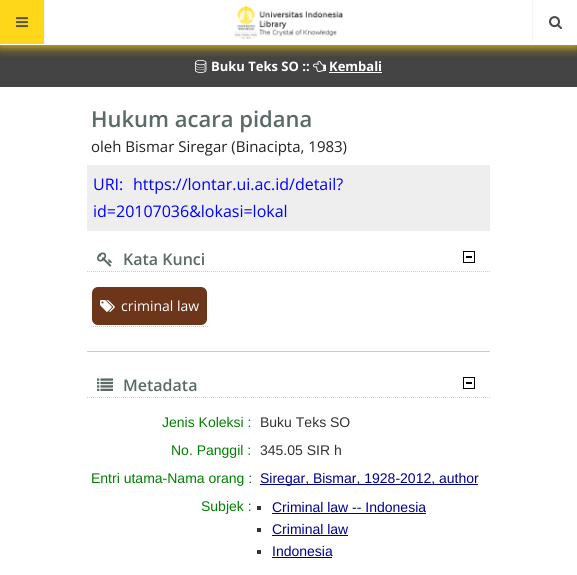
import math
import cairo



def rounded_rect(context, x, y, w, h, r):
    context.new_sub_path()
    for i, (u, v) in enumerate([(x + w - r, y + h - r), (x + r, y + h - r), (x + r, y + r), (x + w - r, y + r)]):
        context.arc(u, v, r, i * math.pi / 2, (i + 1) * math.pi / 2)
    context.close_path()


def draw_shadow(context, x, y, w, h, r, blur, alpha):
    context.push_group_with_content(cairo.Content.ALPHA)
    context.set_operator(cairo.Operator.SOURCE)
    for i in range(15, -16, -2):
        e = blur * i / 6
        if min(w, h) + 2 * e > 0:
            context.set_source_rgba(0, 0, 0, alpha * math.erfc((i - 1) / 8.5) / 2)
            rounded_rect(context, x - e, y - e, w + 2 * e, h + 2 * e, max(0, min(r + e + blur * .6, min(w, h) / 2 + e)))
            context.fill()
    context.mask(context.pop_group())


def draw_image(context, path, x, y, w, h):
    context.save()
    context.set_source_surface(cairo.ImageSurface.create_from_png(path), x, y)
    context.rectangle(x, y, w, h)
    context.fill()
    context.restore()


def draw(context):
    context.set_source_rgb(1, 1, 1)
    context.paint()
    context.set_source_rgb(68 / 255, 68 / 255, 68 / 255)
    context.rectangle(0, 45, 577, 42)
    context.fill()
    draw_image(context, "images/4.png", 195, 59, 12, 14)
    draw_image(context, "images/5.png", 313, 60, 13, 12)
    context.save()
    context.rectangle(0, 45, 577, 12)
    context.clip()
    context.set_source_rgb(236 / 255, 196 / 255, 7 / 255)
    draw_shadow(context, 0, 2, 577, 45, 0, 5, 1)
    context.restore()
    context.set_source_rgb(1, 215 / 255, 26 / 255)
    context.rectangle(0, 0, 44, 44)
    context.fill()
    context.set_source_rgb(245 / 255, 245 / 255, 245 / 255)
    context.rectangle(44, 0, 1, 44)
    context.fill()
    draw_image(context, "images/1.png", 16, 17, 12, 11)
    draw_image(context, "images/2.png", 234, 6, 109, 33)
    context.rectangle(532, 0, 1, 44)
    context.fill()
    draw_image(context, "images/3.png", 549, 16, 13, 13)
    context.set_source_rgb(1, 1, 1)
    context.rectangle(329, 72, 53, 1)
    context.fill()
    context.set_source_rgb(238 / 255, 238 / 255, 238 / 255)
    context.rectangle(87, 165, 403, 66)
    context.fill()
    context.new_path()
    context.move_to(87, 271.5)
    context.line_to(490, 271.5)
    context.set_source_rgb(204 / 255, 204 / 255, 204 / 255)
    context.set_line_width(1)
    context.set_dash([1, 1])
    context.stroke()
    draw_image(context, "images/6.png", 97, 252, 15, 15)
    draw_image(context, "images/7.png", 463, 251, 12, 12)
    context.new_path()
    context.move_to(91, 326.5)
    context.line_to(208, 326.5)
    context.stroke()
    context.set_source_rgb(109 / 255, 53 / 255, 26 / 255)
    rounded_rect(context, 92, 287, 115, 38, 6)
    context.fill()
    draw_image(context, "images/8.png", 100, 300, 15, 12)
    context.set_source_rgb(1, 210 / 255, 0)
    rounded_rect(context, 87, 351, 403, 1, 0.5)
    context.fill()
    context.new_path()
    context.move_to(87, 397.5)
    context.line_to(490, 397.5)
    context.set_source_rgb(204 / 255, 204 / 255, 204 / 255)
    context.stroke()
    draw_image(context, "images/9.png", 97, 378, 16, 13)
    draw_image(context, "images/7.png", 463, 377, 12, 12)
    context.set_source_rgb(0, 0, 144 / 255)
    context.rectangle(260, 484, 218, 1)
    context.fill()
    context.set_source_rgb(51 / 255, 51 / 255, 51 / 255)
    context.rectangle(257, 506, 4, 4)
    context.fill()
    context.set_source_rgb(0, 0, 144 / 255)
    context.rectangle(272, 513, 154, 1)
    context.fill()
    context.set_source_rgb(51 / 255, 51 / 255, 51 / 255)
    context.rectangle(257, 528, 4, 4)
    context.fill()
    context.set_source_rgb(0, 0, 144 / 255)
    context.rectangle(272, 535, 76, 1)
    context.fill()
    context.set_source_rgb(51 / 255, 51 / 255, 51 / 255)
    context.rectangle(257, 550, 4, 4)
    context.fill()
    context.set_source_rgb(0, 0, 144 / 255)
    context.rectangle(272, 557, 60, 1)
    context.fill()
    context.select_font_face("Open Sans", cairo.FontSlant.NORMAL, cairo.FontWeight.BOLD)
    context.set_font_size(13)
    context.set_source_rgb(1, 1, 1)
    context.move_to(211, 71)
    context.show_text("Buku Teks SO ::")
    context.move_to(329, 71)
    context.show_text("Kembali")
    context.select_font_face("Open Sans SemiBold")
    context.set_font_size(22)
    context.set_source_rgb(89 / 255, 106 / 255, 103 / 255)
    context.move_to(91, 127)
    context.show_text("Hukum acara pidana")
    context.select_font_face("Open Sans")
    context.set_font_size(15)
    context.set_source_rgb(34 / 255, 34 / 255, 34 / 255)
    context.move_to(91, 152)
    context.show_text("oleh Bismar Siregar (Binacipta, 1983)")
    context.set_font_size(16)
    context.set_source_rgb(0, 0, 1)
    context.move_to(93, 190)
    context.show_text("URI:")
    context.move_to(133, 190)
    context.show_text("https://lontar.ui.ac.id/detail?")
    context.move_to(93, 217)
    context.show_text("id=20107036&lokasi=lokal")
    context.select_font_face("Open Sans SemiBold")
    context.set_source_rgb(89 / 255, 106 / 255, 103 / 255)
    context.move_to(123, 265)
    context.show_text("Kata Kunci")
    context.select_font_face("Open Sans")
    context.set_font_size(14)
    context.set_source_rgb(1, 1, 1)
    context.move_to(121, 311)
    context.show_text("criminal law")
    context.select_font_face("Open Sans SemiBold")
    context.set_font_size(16)
    context.set_source_rgb(89 / 255, 106 / 255, 103 / 255)
    context.move_to(123, 391)
    context.show_text("Metadata")
    context.select_font_face("Liberation Sans")
    context.set_font_size(14)
    context.set_source_rgb(0, 128 / 255, 0)
    context.move_to(162, 427)
    context.show_text("Jenis Koleksi :")
    context.set_source_rgb(51 / 255, 51 / 255, 51 / 255)
    context.move_to(260, 427)
    context.show_text("Buku Teks SO")
    context.set_source_rgb(0, 128 / 255, 0)
    context.move_to(171, 455)
    context.show_text("No. Panggil :")
    context.set_source_rgb(51 / 255, 51 / 255, 51 / 255)
    context.move_to(260, 455)
    context.show_text("345.05 SIR h")
    context.set_source_rgb(0, 128 / 255, 0)
    context.move_to(91, 483)
    context.show_text("Entri utama-Nama orang :")
    context.set_source_rgb(0, 0, 144 / 255)
    context.move_to(260, 483)
    context.show_text("Siregar, Bismar, 1928-2012, author")
    context.set_source_rgb(0, 128 / 255, 0)
    context.move_to(201, 511)
    context.show_text("Subjek :")
    context.set_source_rgb(0, 0, 144 / 255)
    context.move_to(272, 512)
    context.show_text("Criminal law -- Indonesia")
    context.move_to(272, 534)
    context.show_text("Criminal law")
    context.move_to(272, 556)
    context.show_text("Indonesia")


surface = cairo.ImageSurface(cairo.Format.RGB24, 577, 575)
context = cairo.Context(surface)
options = cairo.FontOptions()
options.set_hint_metrics(cairo.HintMetrics.OFF)
options.set_hint_style(cairo.HintStyle.NONE)
context.set_font_options(options)
context.set_miter_limit(4)
draw(context)
surface.write_to_png("out.png")
